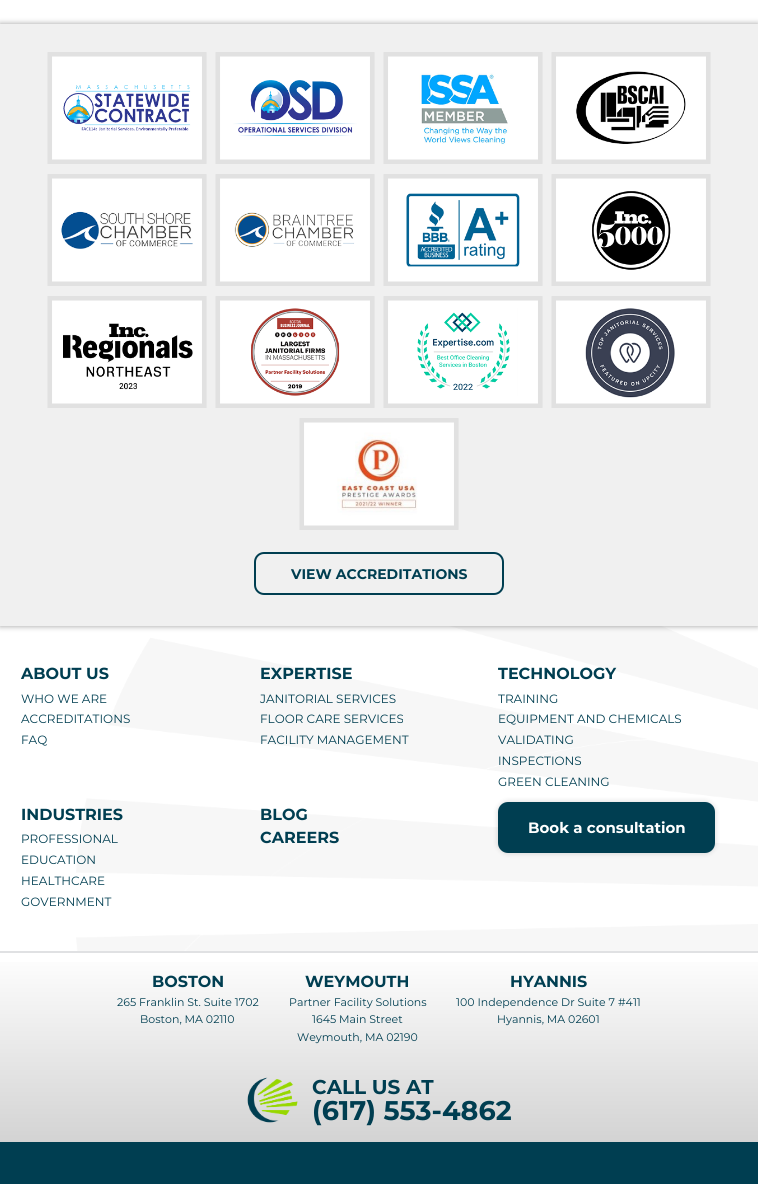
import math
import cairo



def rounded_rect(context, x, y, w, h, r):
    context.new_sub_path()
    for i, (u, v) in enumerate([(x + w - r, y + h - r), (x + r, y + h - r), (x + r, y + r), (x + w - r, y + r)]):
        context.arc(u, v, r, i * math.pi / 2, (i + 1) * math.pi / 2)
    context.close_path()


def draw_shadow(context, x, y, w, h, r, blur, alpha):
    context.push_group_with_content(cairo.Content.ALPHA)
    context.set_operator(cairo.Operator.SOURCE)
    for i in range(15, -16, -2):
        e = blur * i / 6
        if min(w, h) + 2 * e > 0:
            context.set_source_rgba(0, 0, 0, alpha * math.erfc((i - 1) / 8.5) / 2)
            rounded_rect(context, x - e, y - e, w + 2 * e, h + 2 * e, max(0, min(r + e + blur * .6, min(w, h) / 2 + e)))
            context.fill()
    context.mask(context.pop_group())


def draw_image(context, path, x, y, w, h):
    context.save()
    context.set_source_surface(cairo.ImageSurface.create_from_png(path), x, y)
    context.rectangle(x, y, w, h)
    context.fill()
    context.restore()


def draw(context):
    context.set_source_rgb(1, 1, 1)
    context.paint()
    context.set_source_rgb(0, 0, 0)
    draw_shadow(context, 0, 24, 758, 602, 0, 3, 0.39)
    context.set_source_rgb(240 / 255, 240 / 255, 240 / 255)
    context.rectangle(0, 24, 758, 602)
    context.fill()
    draw_image(context, "images/1.png", 47, 52, 160, 112)
    draw_image(context, "images/2.png", 215, 52, 160, 112)
    draw_image(context, "images/3.png", 383, 52, 160, 112)
    draw_image(context, "images/4.png", 551, 52, 160, 112)
    draw_image(context, "images/5.png", 47, 174, 160, 112)
    draw_image(context, "images/6.png", 215, 174, 160, 112)
    draw_image(context, "images/7.png", 383, 174, 160, 112)
    draw_image(context, "images/8.png", 551, 174, 160, 112)
    draw_image(context, "images/9.png", 47, 296, 160, 112)
    draw_image(context, "images/10.png", 215, 296, 160, 112)
    draw_image(context, "images/11.png", 383, 296, 160, 112)
    draw_image(context, "images/12.png", 551, 296, 160, 112)
    draw_image(context, "images/13.png", 299, 418, 160, 112)
    rounded_rect(context, 255, 553, 248, 41, 9)
    context.set_source_rgb(0, 62 / 255, 81 / 255)
    context.stroke()
    draw_image(context, "images/14.png", 76, 626, 682, 325)
    context.set_source_rgb(0, 0, 0)
    draw_shadow(context, 498, 802, 217, 51, 10, 3, 0.16)
    context.set_source_rgb(0, 62 / 255, 81 / 255)
    rounded_rect(context, 498, 802, 217, 51, 10)
    context.fill()
    gradient = cairo.LinearGradient(379, 951, 379, 1142)
    gradient.add_color_stop_rgba(0, 1, 1, 1, 1)
    gradient.add_color_stop_rgba(1, 211 / 255, 211 / 255, 211 / 255, 1)
    context.set_source(gradient)
    context.rectangle(0, 962, 758, 180)
    context.fill()
    context.set_source_rgb(224 / 255, 225 / 255, 227 / 255)
    context.rectangle(0, 951, 758, 2)
    context.fill()
    draw_image(context, "images/15.png", 247, 1077, 51, 46)
    context.set_source_rgb(0, 62 / 255, 81 / 255)
    context.rectangle(0, 1142, 758, 42)
    context.fill()
    context.select_font_face("Montserrat", cairo.FontSlant.NORMAL, cairo.FontWeight.BOLD)
    context.set_font_size(14)
    context.move_to(291, 579)
    context.show_text("VIEW ACCREDITATIONS")
    context.set_font_size(16)
    context.move_to(21, 679)
    context.show_text("ABOUT US")
    context.select_font_face("Montserrat")
    context.set_font_size(12)
    context.move_to(21, 703)
    context.show_text("WHO WE ARE")
    context.move_to(21, 723)
    context.show_text("ACCREDITATIONS")
    context.move_to(21, 744)
    context.show_text("FAQ")
    context.select_font_face("Montserrat", cairo.FontSlant.NORMAL, cairo.FontWeight.BOLD)
    context.set_font_size(16)
    context.move_to(260, 679)
    context.show_text("EXPERTISE")
    context.select_font_face("Montserrat")
    context.set_font_size(12)
    context.move_to(260, 703)
    context.show_text("JANITORIAL SERVICES")
    context.move_to(260, 723)
    context.show_text("FLOOR CARE SERVICES")
    context.move_to(260, 744)
    context.show_text("FACILITY MANAGEMENT")
    context.select_font_face("Montserrat", cairo.FontSlant.NORMAL, cairo.FontWeight.BOLD)
    context.set_font_size(16)
    context.move_to(498, 679)
    context.show_text("TECHNOLOGY")
    context.select_font_face("Montserrat")
    context.set_font_size(12)
    context.move_to(498, 703)
    context.show_text("TRAINING")
    context.move_to(498, 723)
    context.show_text("EQUIPMENT AND CHEMICALS")
    context.move_to(498, 744)
    context.show_text("VALIDATING")
    context.move_to(498, 765)
    context.show_text("INSPECTIONS")
    context.move_to(498, 786)
    context.show_text("GREEN CLEANING")
    context.select_font_face("Montserrat", cairo.FontSlant.NORMAL, cairo.FontWeight.BOLD)
    context.set_font_size(16)
    context.move_to(21, 820)
    context.show_text("INDUSTRIES")
    context.select_font_face("Montserrat")
    context.set_font_size(12)
    context.move_to(21, 843)
    context.show_text("PROFESSIONAL")
    context.move_to(21, 864)
    context.show_text("EDUCATION")
    context.move_to(21, 885)
    context.show_text("HEALTHCARE")
    context.move_to(21, 906)
    context.show_text("GOVERNMENT")
    context.select_font_face("Montserrat", cairo.FontSlant.NORMAL, cairo.FontWeight.BOLD)
    context.set_font_size(16)
    context.move_to(260, 820)
    context.show_text("BLOG")
    context.move_to(260, 843)
    context.show_text("CAREERS")
    context.set_font_size(15)
    context.set_source_rgb(1, 1, 1)
    context.move_to(528, 833)
    context.show_text("Book a consultation")
    context.set_font_size(16)
    context.set_source_rgb(0, 62 / 255, 81 / 255)
    context.move_to(152, 987)
    context.show_text("BOSTON")
    context.select_font_face("Montserrat")
    context.set_font_size(11)
    context.move_to(117, 1006)
    context.show_text("265 Franklin St. Suite 1702")
    context.move_to(140, 1023)
    context.show_text("Boston, MA 02110")
    context.select_font_face("Montserrat", cairo.FontSlant.NORMAL, cairo.FontWeight.BOLD)
    context.set_font_size(16)
    context.move_to(305, 987)
    context.show_text("WEYMOUTH")
    context.select_font_face("Montserrat")
    context.set_font_size(11)
    context.move_to(289, 1006)
    context.show_text("Partner Facility Solutions")
    context.move_to(312, 1023)
    context.show_text("1645 Main Street")
    context.move_to(297, 1041)
    context.show_text("Weymouth, MA 02190")
    context.select_font_face("Montserrat", cairo.FontSlant.NORMAL, cairo.FontWeight.BOLD)
    context.set_font_size(16)
    context.move_to(510, 987)
    context.show_text("HYANNIS")
    context.select_font_face("Montserrat")
    context.set_font_size(11)
    context.move_to(456, 1006)
    context.show_text("100 Independence Dr Suite 7 #411")
    context.move_to(497, 1023)
    context.show_text("Hyannis, MA 02601")
    context.select_font_face("Montserrat", cairo.FontSlant.NORMAL, cairo.FontWeight.BOLD)
    context.set_font_size(20)
    context.move_to(312, 1094)
    context.show_text("CALL US AT")
    context.set_font_size(27)
    context.move_to(312, 1120)
    context.show_text("(617) 553-4862")


surface = cairo.ImageSurface(cairo.Format.RGB24, 758, 1184)
context = cairo.Context(surface)
options = cairo.FontOptions()
options.set_hint_metrics(cairo.HintMetrics.OFF)
options.set_hint_style(cairo.HintStyle.NONE)
context.set_font_options(options)
context.set_miter_limit(4)
draw(context)
surface.write_to_png("out.png")
